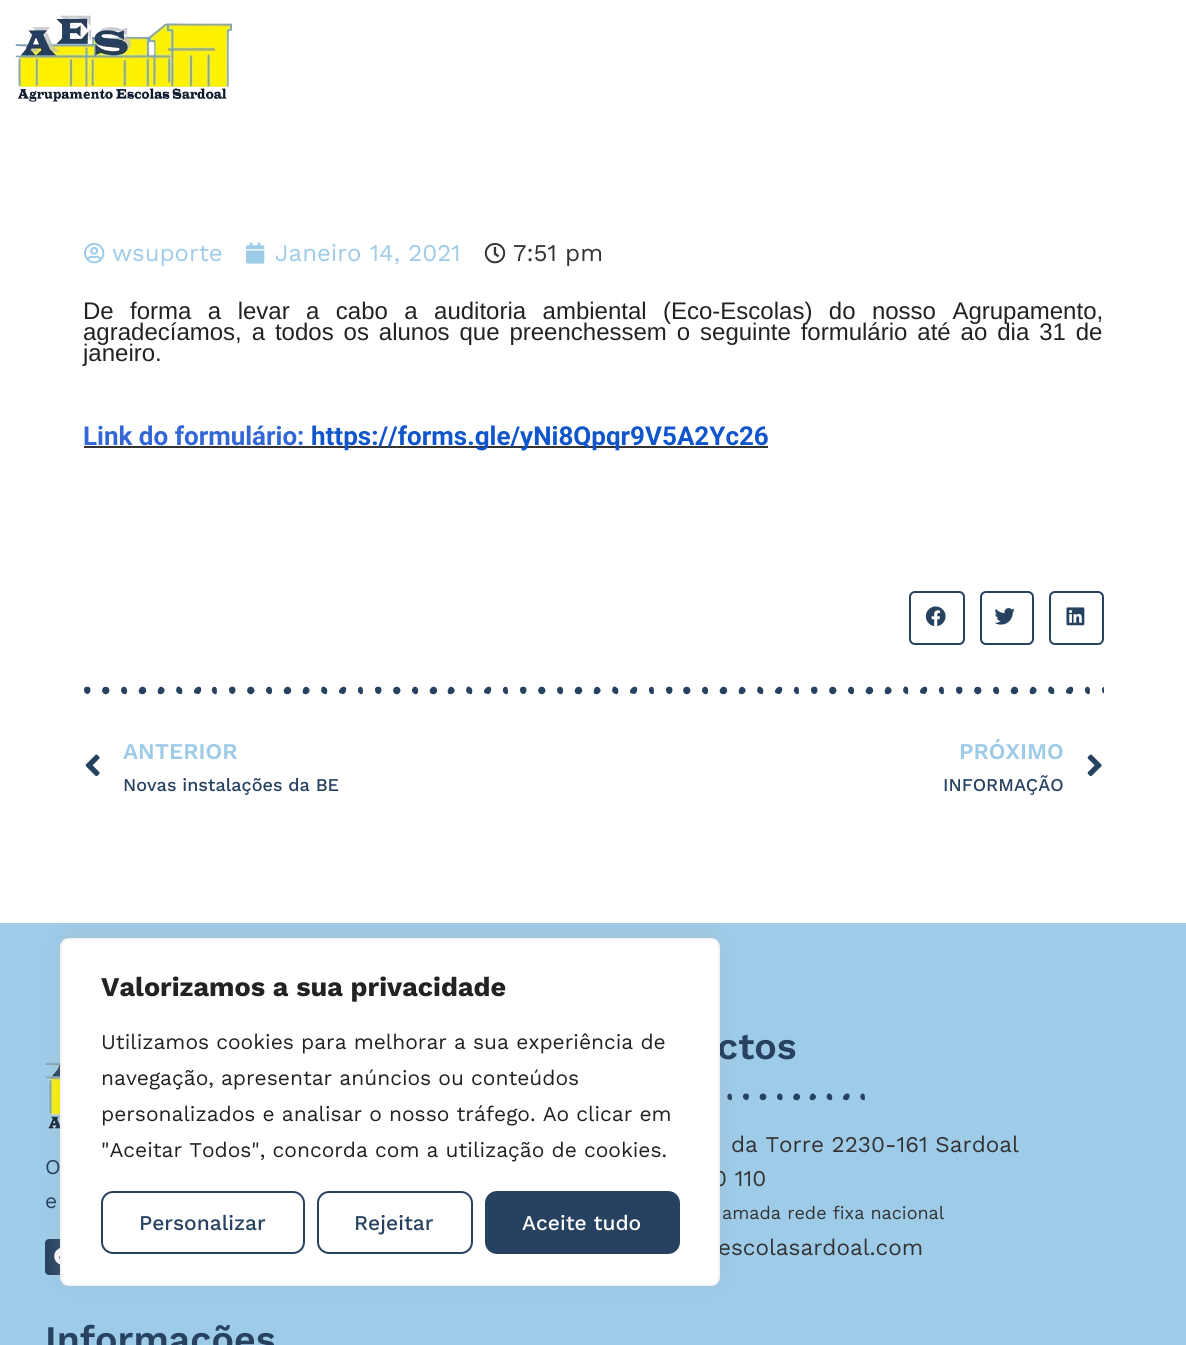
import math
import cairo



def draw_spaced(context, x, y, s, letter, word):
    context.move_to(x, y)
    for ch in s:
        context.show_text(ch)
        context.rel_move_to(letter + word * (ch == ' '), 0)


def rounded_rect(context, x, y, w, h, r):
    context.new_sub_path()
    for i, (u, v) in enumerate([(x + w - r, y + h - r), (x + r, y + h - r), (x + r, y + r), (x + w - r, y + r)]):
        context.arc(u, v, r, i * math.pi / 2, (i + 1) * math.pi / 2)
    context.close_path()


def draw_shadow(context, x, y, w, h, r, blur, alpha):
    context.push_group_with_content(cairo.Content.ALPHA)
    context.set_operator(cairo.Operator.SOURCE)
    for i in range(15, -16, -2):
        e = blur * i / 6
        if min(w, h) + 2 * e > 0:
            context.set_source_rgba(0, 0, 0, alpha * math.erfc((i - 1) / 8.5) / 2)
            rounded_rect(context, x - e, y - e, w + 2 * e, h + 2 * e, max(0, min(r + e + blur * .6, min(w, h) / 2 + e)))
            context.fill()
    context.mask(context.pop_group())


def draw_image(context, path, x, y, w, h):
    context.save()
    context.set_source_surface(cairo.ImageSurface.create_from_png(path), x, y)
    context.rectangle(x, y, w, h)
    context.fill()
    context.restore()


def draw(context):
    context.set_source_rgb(1, 1, 1)
    context.paint()
    draw_image(context, "images/1.png", 15, 15, 217, 87)
    draw_image(context, "images/2.png", 84, 243, 21, 21)
    draw_image(context, "images/3.png", 246, 242, 19, 22)
    draw_image(context, "images/4.png", 484, 243, 22, 21)
    context.set_source_rgb(51 / 255, 51 / 255, 51 / 255)
    context.rectangle(84, 446, 684, 2)
    context.fill()
    rounded_rect(context, 910, 592, 54, 52, 5)
    context.set_source_rgb(39 / 255, 66 / 255, 96 / 255)
    context.stroke()
    draw_image(context, "images/5.png", 925, 606, 21, 21)
    rounded_rect(context, 981, 592, 52, 52, 5)
    context.stroke()
    draw_image(context, "images/6.png", 994, 608, 21, 17)
    rounded_rect(context, 1050, 592, 53, 52, 5)
    context.stroke()
    draw_image(context, "images/7.png", 1066, 607, 19, 19)
    draw_image(context, "images/8.png", 84, 686, 1020, 9)
    draw_image(context, "images/9.png", 85, 754, 15, 23)
    draw_image(context, "images/10.png", 1087, 754, 15, 23)
    context.set_source_rgb(157 / 255, 203 / 255, 232 / 255)
    context.rectangle(0, 923, 1186, 422)
    context.fill()
    draw_image(context, "images/11.png", 45, 1062, 15, 67)
    context.set_source_rgb(39 / 255, 66 / 255, 96 / 255)
    rounded_rect(context, 45, 1239, 36, 36, 4)
    context.fill()
    draw_image(context, "images/12.png", 54, 1248, 6, 17)
    draw_image(context, "images/13.png", 727, 1093, 138, 8)
    context.set_source_rgb(172 / 255, 171 / 255, 171 / 255)
    draw_shadow(context, 60, 936, 660, 348, 9, 7.5, 0.3)
    context.select_font_face("Work Sans")
    context.set_font_size(24)
    context.set_source_rgb(157 / 255, 203 / 255, 232 / 255)
    context.move_to(112, 261)
    context.show_text("wsuporte")
    context.move_to(275, 261)
    context.show_text("Janeiro 14, 2021")
    context.set_source_rgb(51 / 255, 51 / 255, 51 / 255)
    context.move_to(513, 261)
    context.show_text("7:51 pm")
    context.select_font_face("Liberation Sans")
    context.set_source_rgb(34 / 255, 34 / 255, 34 / 255)
    draw_spaced(context, 83, 319, "De forma a levar a cabo a auditoria ambiental (Eco-Escolas) do nosso Agrupamento,", 0, 9.75)
    draw_spaced(context, 83, 340, "agradecíamos, a todos os alunos que preenchessem o seguinte formulário até ao dia 31 de", 0, 3.25)
    context.move_to(83, 361)
    context.show_text("janeiro.")
    context.select_font_face("Roboto", cairo.FontSlant.NORMAL, cairo.FontWeight.BOLD)
    context.set_font_size(26)
    context.set_source_rgb(51 / 255, 103 / 255, 214 / 255)
    context.move_to(83, 445)
    context.show_text("Link do formulário:")
    context.set_source_rgb(17 / 255, 85 / 255, 204 / 255)
    context.move_to(311, 445)
    context.show_text("https://forms.gle/yNi8Qpqr9V5A2Yc26")
    context.select_font_face("Work Sans SemiBold")
    context.set_font_size(22.5)
    context.set_source_rgb(157 / 255, 203 / 255, 232 / 255)
    context.move_to(123, 759)
    context.show_text("ANTERIOR")
    context.select_font_face("Work Sans Medium")
    context.set_font_size(18)
    context.set_source_rgb(39 / 255, 66 / 255, 96 / 255)
    context.move_to(123, 791)
    context.show_text("Novas instalações da BE")
    context.select_font_face("Work Sans SemiBold")
    context.set_font_size(22.5)
    context.set_source_rgb(157 / 255, 203 / 255, 232 / 255)
    context.move_to(959, 759)
    context.show_text("PRÓXIMO")
    context.select_font_face("Work Sans Medium")
    context.set_font_size(18)
    context.set_source_rgb(39 / 255, 66 / 255, 96 / 255)
    context.move_to(943, 791)
    context.show_text("INFORMAÇÃO")
    context.select_font_face("Work Sans")
    context.set_font_size(21)
    context.move_to(45, 1174)
    context.show_text("O")
    context.move_to(45, 1208)
    context.show_text("e")
    context.select_font_face("Work Sans SemiBold")
    context.set_font_size(37.5)
    context.move_to(717, 1059)
    context.show_text("ctos")
    context.select_font_face("Work Sans")
    context.set_font_size(22.5)
    context.set_source_rgb(51 / 255, 51 / 255, 51 / 255)
    context.move_to(731, 1152)
    context.show_text("da Torre 2230-161 Sardoal")
    context.move_to(713, 1186)
    context.show_text("0 110")
    context.set_font_size(18)
    context.move_to(722, 1219)
    context.show_text("amada rede fixa nacional")
    context.set_font_size(22.5)
    context.move_to(718, 1255)
    context.show_text("escolasardoal.com")
    context.set_source_rgb(1, 1, 1)
    rounded_rect(context, 61, 939, 658, 346, 8)
    context.fill_preserve()
    context.set_source_rgb(244 / 255, 244 / 255, 244 / 255)
    context.stroke()
    context.set_source_rgb(39 / 255, 66 / 255, 96 / 255)
    rounded_rect(context, 486, 1192, 193, 61, 11)
    context.fill_preserve()
    context.stroke()
    context.select_font_face("Work Sans Medium")
    context.set_font_size(21)
    context.set_source_rgb(1, 1, 1)
    context.move_to(522, 1230)
    context.show_text("Aceite tudo")
    rounded_rect(context, 318, 1192, 154, 61, 11)
    context.set_source_rgb(39 / 255, 66 / 255, 96 / 255)
    context.stroke()
    context.move_to(354, 1230)
    context.show_text("Rejeitar")
    rounded_rect(context, 102, 1192, 202, 61, 11)
    context.stroke()
    context.move_to(139, 1230)
    context.show_text("Personalizar")
    context.select_font_face("Work Sans")
    context.set_source_rgb(34 / 255, 34 / 255, 34 / 255)
    context.move_to(101, 1157)
    context.show_text("\"Aceitar Todos\", concorda com a utilização de cookies.")
    context.move_to(101, 1121)
    context.show_text("personalizados e analisar o nosso tráfego. Ao clicar em")
    context.move_to(101, 1085)
    context.show_text("navegação, apresentar anúncios ou conteúdos")
    context.move_to(101, 1049)
    context.show_text("Utilizamos cookies para melhorar a sua experiência de")
    context.select_font_face("Work Sans", cairo.FontSlant.NORMAL, cairo.FontWeight.BOLD)
    context.set_font_size(27)
    context.move_to(101, 996)
    context.show_text("Valorizamos a sua privacidade")
    context.select_font_face("Work Sans SemiBold")
    context.set_font_size(37.5)
    context.set_source_rgb(39 / 255, 66 / 255, 96 / 255)
    context.move_to(45, 1352)
    context.show_text("Informações")


surface = cairo.ImageSurface(cairo.Format.RGB24, 1186, 1345)
context = cairo.Context(surface)
options = cairo.FontOptions()
options.set_hint_metrics(cairo.HintMetrics.OFF)
options.set_hint_style(cairo.HintStyle.NONE)
context.set_font_options(options)
context.set_miter_limit(4)
draw(context)
surface.write_to_png("out.png")
